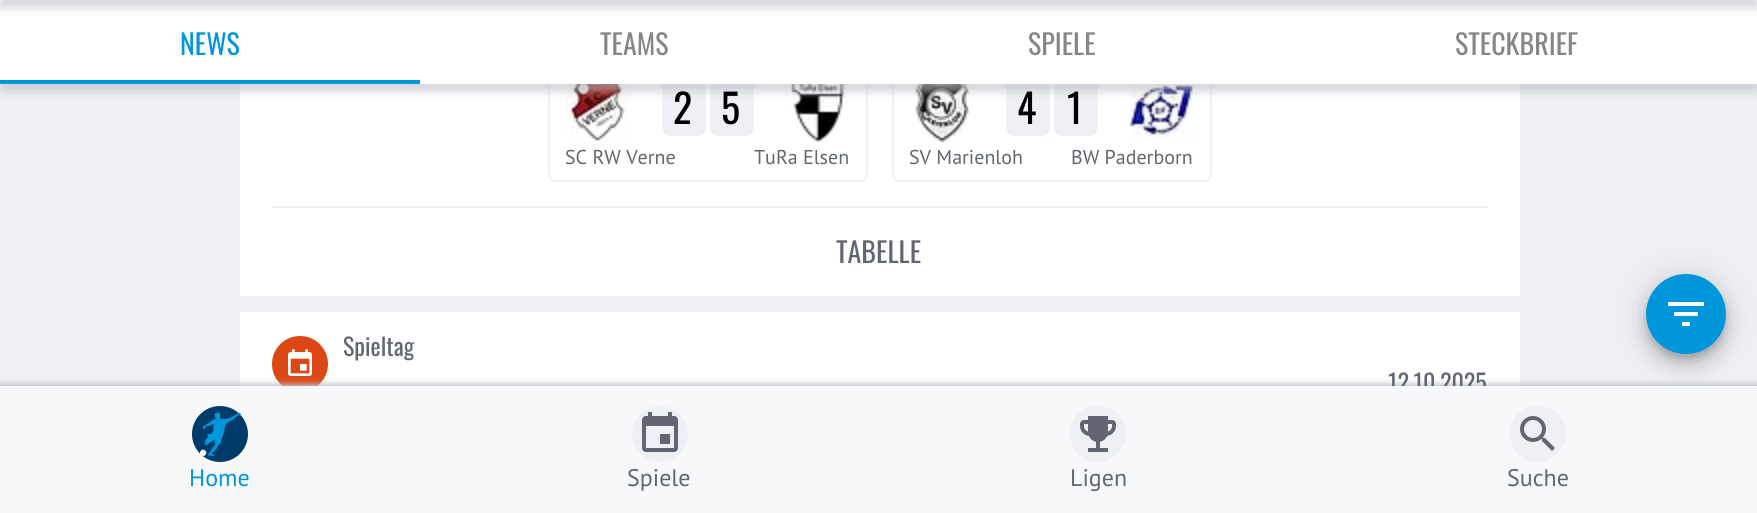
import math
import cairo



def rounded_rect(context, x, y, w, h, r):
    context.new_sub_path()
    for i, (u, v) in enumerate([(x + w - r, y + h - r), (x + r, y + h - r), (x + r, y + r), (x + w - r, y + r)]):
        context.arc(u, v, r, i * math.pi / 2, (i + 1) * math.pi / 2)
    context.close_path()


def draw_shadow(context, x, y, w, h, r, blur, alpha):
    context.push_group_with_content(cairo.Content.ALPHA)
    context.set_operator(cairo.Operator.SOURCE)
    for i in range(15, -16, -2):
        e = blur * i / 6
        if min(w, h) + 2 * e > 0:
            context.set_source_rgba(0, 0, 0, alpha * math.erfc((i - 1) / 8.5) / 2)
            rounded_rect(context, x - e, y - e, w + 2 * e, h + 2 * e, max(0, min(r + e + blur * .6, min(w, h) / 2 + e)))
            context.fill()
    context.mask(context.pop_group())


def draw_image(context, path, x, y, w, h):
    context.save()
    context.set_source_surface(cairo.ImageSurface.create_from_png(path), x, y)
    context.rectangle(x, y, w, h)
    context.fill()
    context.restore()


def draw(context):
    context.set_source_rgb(238 / 255, 240 / 255, 245 / 255)
    context.paint()
    context.set_source_rgb(1, 1, 1)
    context.rectangle(240, 84, 1280, 212)
    context.fill()
    rounded_rect(context, 549, 63, 318, 118, 7)
    context.set_source_rgb(238 / 255, 240 / 255, 245 / 255)
    context.stroke()
    draw_image(context, "images/1.png", 566, 84, 64, 58)
    rounded_rect(context, 662, 76, 44, 60, 8)
    context.fill()
    rounded_rect(context, 710, 76, 44, 60, 8)
    context.fill()
    draw_image(context, "images/2.png", 791, 84, 54, 58)
    rounded_rect(context, 893, 63, 318, 118, 7)
    context.stroke()
    draw_image(context, "images/3.png", 914, 84, 56, 58)
    rounded_rect(context, 1006, 76, 44, 60, 8)
    context.fill()
    rounded_rect(context, 1054, 76, 44, 60, 8)
    context.fill()
    draw_image(context, "images/4.png", 1130, 84, 64, 58)
    context.set_source_rgb(188 / 255, 190 / 255, 198 / 255)
    draw_shadow(context, 0, 8, 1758, 84, 0, 4, 0.6)
    context.set_source_rgb(1, 1, 1)
    context.rectangle(0, 0, 1757, 84)
    context.fill()
    context.set_source_rgb(188 / 255, 190 / 255, 198 / 255)
    draw_shadow(context, 0, -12, 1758, 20, 0, 4, 0.6)
    context.set_source_rgb(0, 150 / 255, 219 / 255)
    context.rectangle(0, 80, 420, 4)
    context.fill()
    context.set_source_rgb(238 / 255, 240 / 255, 245 / 255)
    context.rectangle(272, 206, 1216, 2)
    context.fill()
    context.set_source_rgb(1, 1, 1)
    context.rectangle(240, 312, 1280, 74)
    context.fill()
    context.set_source_rgb(219 / 255, 72 / 255, 22 / 255)
    context.arc(300, 364, 28, 0, 2 * math.pi)
    context.fill()
    draw_image(context, "images/5.png", 288, 349, 24, 27)
    context.set_source_rgb(0, 0, 0)
    draw_shadow(context, 1646, 276, 80, 80, 40, 18, 0.12)
    draw_shadow(context, 1646, 286, 80, 80, 40, 10, 0.14)
    draw_shadow(context, 1648, 282, 76, 76, 38, 5, 0.2)
    context.set_source_rgb(0, 150 / 255, 219 / 255)
    context.arc(1686, 314, 40, 0, 2 * math.pi)
    context.fill()
    context.set_source_rgb(1, 1, 1)
    context.new_path()
    context.move_to(1682, 326)
    context.line_to(1690, 326)
    context.line_to(1690, 322)
    context.line_to(1682, 322)
    context.close_path()
    context.move_to(1668, 302)
    context.line_to(1668, 306)
    context.line_to(1704, 306)
    context.line_to(1704, 302)
    context.close_path()
    context.move_to(1674, 316)
    context.line_to(1698, 316)
    context.line_to(1698, 312)
    context.line_to(1674, 312)
    context.close_path()
    context.fill()
    context.set_source_rgb(188 / 255, 190 / 255, 198 / 255)
    draw_shadow(context, 0, 384, 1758, 128, 0, 3, 1)
    context.select_font_face("Oswald")
    context.set_font_size(28)
    context.set_source_rgb(0, 150 / 255, 219 / 255)
    context.move_to(180, 55)
    context.show_text("NEWS")
    context.set_source_rgb(133 / 255, 134 / 255, 134 / 255)
    context.move_to(600, 55)
    context.show_text("TEAMS")
    context.move_to(1028, 55)
    context.show_text("SPIELE")
    context.move_to(1455, 55)
    context.show_text("STECKBRIEF")
    context.set_font_size(40)
    context.set_source_rgb(0, 0, 0)
    context.move_to(673, 124)
    context.show_text("2")
    context.move_to(721, 124)
    context.show_text("5")
    context.select_font_face("PT Sans")
    context.set_font_size(20)
    context.set_source_rgb(97 / 255, 102 / 255, 114 / 255)
    context.move_to(565, 164)
    context.show_text("SC RW Verne")
    context.move_to(754, 164)
    context.show_text("TuRa Elsen")
    context.select_font_face("Oswald")
    context.set_font_size(40)
    context.set_source_rgb(0, 0, 0)
    context.move_to(1017, 124)
    context.show_text("4")
    context.move_to(1067, 124)
    context.show_text("1")
    context.select_font_face("PT Sans")
    context.set_font_size(20)
    context.set_source_rgb(97 / 255, 102 / 255, 114 / 255)
    context.move_to(909, 164)
    context.show_text("SV Marienloh")
    context.move_to(1071, 164)
    context.show_text("BW Paderborn")
    context.select_font_face("Oswald")
    context.set_font_size(28)
    context.move_to(836, 263)
    context.show_text("TABELLE")
    context.set_font_size(24)
    context.move_to(343, 356)
    context.show_text("Spieltag")
    context.move_to(1388, 392)
    context.show_text("12.10.2025")
    context.set_source_rgb(247 / 255, 248 / 255, 250 / 255)
    context.rectangle(0, 386, 1757, 127)
    context.fill()
    context.set_source_rgb(0, 60 / 255, 105 / 255)
    context.arc(220, 434, 28, 0, 2 * math.pi)
    context.fill()
    draw_image(context, "images/6.png", 200, 412, 42, 44)
    context.select_font_face("PT Sans")
    context.set_source_rgb(0, 150 / 255, 219 / 255)
    context.move_to(189, 486)
    context.show_text("Home")
    context.set_source_rgb(238 / 255, 240 / 255, 245 / 255)
    context.new_path()
    context.arc(660, 434, 28, 0, 2 * math.pi)
    context.fill()
    draw_image(context, "images/7.png", 642, 412, 36, 40)
    context.set_source_rgb(97 / 255, 102 / 255, 114 / 255)
    context.move_to(627, 486)
    context.show_text("Spiele")
    context.set_source_rgb(238 / 255, 240 / 255, 245 / 255)
    context.new_path()
    context.arc(1098, 434, 28, 0, 2 * math.pi)
    context.fill()
    draw_image(context, "images/8.png", 1080, 416, 36, 36)
    context.set_source_rgb(97 / 255, 102 / 255, 114 / 255)
    context.move_to(1070, 486)
    context.show_text("Ligen")
    context.set_source_rgb(238 / 255, 240 / 255, 245 / 255)
    context.new_path()
    context.arc(1538, 434, 28, 0, 2 * math.pi)
    context.fill()
    draw_image(context, "images/9.png", 1520, 416, 35, 35)
    context.set_source_rgb(97 / 255, 102 / 255, 114 / 255)
    context.move_to(1507, 486)
    context.show_text("Suche")


surface = cairo.ImageSurface(cairo.Format.RGB24, 1757, 513)
context = cairo.Context(surface)
options = cairo.FontOptions()
options.set_hint_metrics(cairo.HintMetrics.OFF)
options.set_hint_style(cairo.HintStyle.NONE)
context.set_font_options(options)
context.set_miter_limit(4)
draw(context)
surface.write_to_png("out.png")
